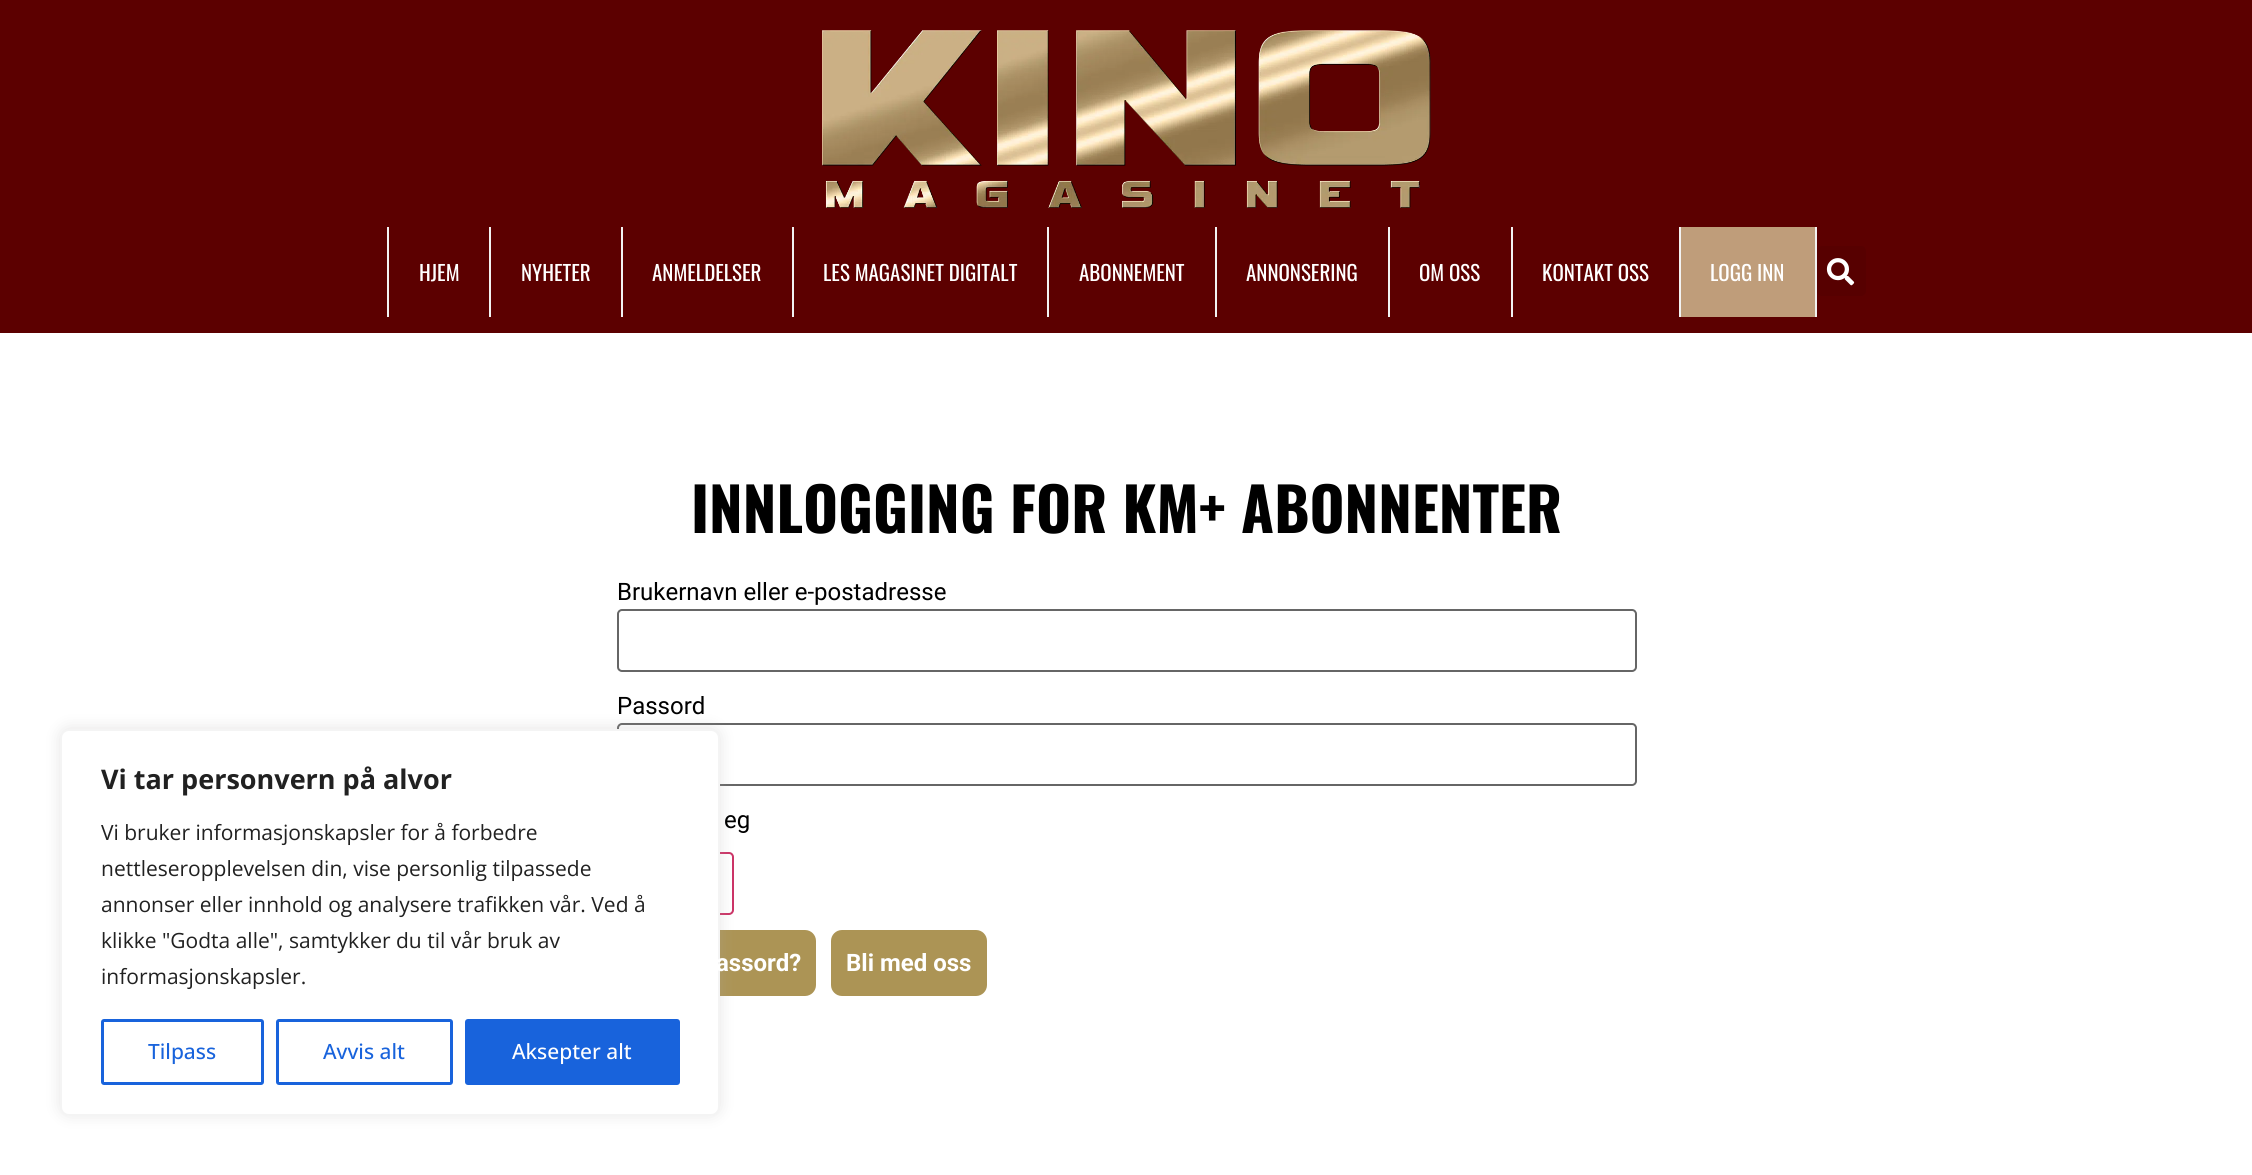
import math
import cairo



def rounded_rect(context, x, y, w, h, r):
    context.new_sub_path()
    for i, (u, v) in enumerate([(x + w - r, y + h - r), (x + r, y + h - r), (x + r, y + r), (x + w - r, y + r)]):
        context.arc(u, v, r, i * math.pi / 2, (i + 1) * math.pi / 2)
    context.close_path()


def draw_shadow(context, x, y, w, h, r, blur, alpha):
    context.push_group_with_content(cairo.Content.ALPHA)
    context.set_operator(cairo.Operator.SOURCE)
    for i in range(15, -16, -2):
        e = blur * i / 6
        if min(w, h) + 2 * e > 0:
            context.set_source_rgba(0, 0, 0, alpha * math.erfc((i - 1) / 8.5) / 2)
            rounded_rect(context, x - e, y - e, w + 2 * e, h + 2 * e, max(0, min(r + e + blur * .6, min(w, h) / 2 + e)))
            context.fill()
    context.mask(context.pop_group())


def draw_image(context, path, x, y, w, h):
    context.save()
    context.set_source_surface(cairo.ImageSurface.create_from_png(path), x, y)
    context.rectangle(x, y, w, h)
    context.fill()
    context.restore()


def draw(context):
    context.set_source_rgb(1, 1, 1)
    context.paint()
    context.set_source_rgb(92 / 255, 0, 0)
    context.rectangle(0, 0, 2252, 333)
    context.fill()
    draw_image(context, "images/1.png", 822, 30, 609, 178)
    context.set_source_rgb(242 / 255, 242 / 255, 242 / 255)
    context.rectangle(387, 227, 2, 90)
    context.fill()
    context.rectangle(489, 227, 2, 90)
    context.fill()
    context.rectangle(621, 227, 2, 90)
    context.fill()
    context.rectangle(792, 227, 2, 90)
    context.fill()
    context.rectangle(1047, 227, 2, 90)
    context.fill()
    context.rectangle(1215, 227, 2, 90)
    context.fill()
    context.rectangle(1388, 227, 2, 90)
    context.fill()
    context.rectangle(1511, 227, 2, 90)
    context.fill()
    context.set_source_rgb(191 / 255, 157 / 255, 122 / 255)
    context.rectangle(1681, 227, 134, 90)
    context.fill()
    context.set_source_rgb(242 / 255, 242 / 255, 242 / 255)
    context.rectangle(1815, 227, 2, 90)
    context.fill()
    context.rectangle(1679, 227, 2, 90)
    context.fill()
    context.set_source_rgb(87 / 255, 0, 0)
    rounded_rect(context, 1817, 246, 49, 50, 5)
    context.fill()
    draw_image(context, "images/2.png", 1826, 258, 29, 28)
    rounded_rect(context, 618, 724, 1018, 61, 4)
    context.set_source_rgb(102 / 255, 102 / 255, 102 / 255)
    context.stroke()
    rounded_rect(context, 618, 853, 115, 61, 4)
    context.set_source_rgb(204 / 255, 51 / 255, 102 / 255)
    context.stroke()
    context.set_source_rgb(172 / 255, 148 / 255, 85 / 255)
    rounded_rect(context, 617, 930, 199, 66, 11)
    context.fill()
    context.set_source_rgb(172 / 255, 171 / 255, 171 / 255)
    draw_shadow(context, 60, 728, 660, 387, 9, 7.5, 0.3)
    context.set_source_rgb(1, 1, 1)
    rounded_rect(context, 61, 730, 658, 385, 8)
    context.fill_preserve()
    context.set_source_rgb(244 / 255, 244 / 255, 244 / 255)
    context.stroke()
    rounded_rect(context, 102.5, 1020.5, 160, 63, 1.5)
    context.set_source_rgb(24 / 255, 99 / 255, 220 / 255)
    context.set_line_width(3)
    context.stroke()
    rounded_rect(context, 277.5, 1020.5, 174, 63, 1.5)
    context.stroke()
    rounded_rect(context, 466.5, 1020.5, 212, 63, 1.5)
    context.fill_preserve()
    context.stroke()
    rounded_rect(context, 618, 610, 1018, 61, 4)
    context.set_source_rgb(102 / 255, 102 / 255, 102 / 255)
    context.set_line_width(2)
    context.stroke()
    context.set_source_rgb(172 / 255, 148 / 255, 85 / 255)
    rounded_rect(context, 831, 930, 156, 66, 11)
    context.fill()
    context.select_font_face("Oswald")
    context.set_font_size(21)
    context.set_source_rgb(1, 1, 1)
    context.move_to(419, 281)
    context.show_text("HJEM")
    context.move_to(521, 281)
    context.show_text("NYHETER")
    context.move_to(652, 281)
    context.show_text("ANMELDELSER")
    context.move_to(823, 281)
    context.show_text("LES MAGASINET DIGITALT")
    context.move_to(1079, 281)
    context.show_text("ABONNEMENT")
    context.move_to(1246, 281)
    context.show_text("ANNONSERING")
    context.move_to(1419, 281)
    context.show_text("OM OSS")
    context.move_to(1542, 281)
    context.show_text("KONTAKT OSS")
    context.move_to(1710, 281)
    context.show_text("LOGG INN")
    context.select_font_face("Open Sans", cairo.FontSlant.NORMAL, cairo.FontWeight.BOLD)
    context.set_font_size(27)
    context.set_source_rgb(33 / 255, 33 / 255, 33 / 255)
    context.move_to(101, 789)
    context.show_text("Vi tar personvern på alvor")
    context.select_font_face("Open Sans")
    context.set_font_size(21)
    context.move_to(101, 840)
    context.show_text("Vi bruker informasjonskapsler for å forbedre")
    context.move_to(101, 876)
    context.show_text("nettleseropplevelsen din, vise personlig tilpassede")
    context.move_to(101, 912)
    context.show_text("annonser eller innhold og analysere trafikken vår. Ved å")
    context.move_to(101, 948)
    context.show_text("klikke \"Godta alle\", samtykker du til vår bruk av")
    context.move_to(101, 984)
    context.show_text("informasjonskapsler.")
    context.select_font_face("Open Sans Medium")
    context.set_source_rgb(24 / 255, 99 / 255, 220 / 255)
    context.move_to(148, 1059)
    context.show_text("Tilpass")
    context.move_to(323, 1059)
    context.show_text("Avvis alt")
    context.set_source_rgb(1, 1, 1)
    context.move_to(512, 1059)
    context.show_text("Aksepter alt")
    context.select_font_face("Oswald", cairo.FontSlant.NORMAL, cairo.FontWeight.BOLD)
    context.set_font_size(60)
    context.set_source_rgb(0, 0, 0)
    context.move_to(691, 533)
    context.show_text("INNLOGGING FOR KM+ ABONNENTER")
    context.select_font_face("Roboto")
    context.set_font_size(24)
    context.move_to(617, 600)
    context.show_text("Brukernavn eller e-postadresse")
    context.move_to(617, 714)
    context.show_text("Passord")
    context.move_to(724, 828)
    context.show_text("eg")
    context.select_font_face("Roboto", cairo.FontSlant.NORMAL, cairo.FontWeight.BOLD)
    context.set_source_rgb(1, 1, 1)
    context.move_to(716, 971)
    context.show_text("assord?")
    context.move_to(846, 971)
    context.show_text("Bli med oss")


surface = cairo.ImageSurface(cairo.Format.RGB24, 2252, 1175)
context = cairo.Context(surface)
options = cairo.FontOptions()
options.set_hint_metrics(cairo.HintMetrics.OFF)
options.set_hint_style(cairo.HintStyle.NONE)
context.set_font_options(options)
context.set_miter_limit(4)
draw(context)
surface.write_to_png("out.png")
